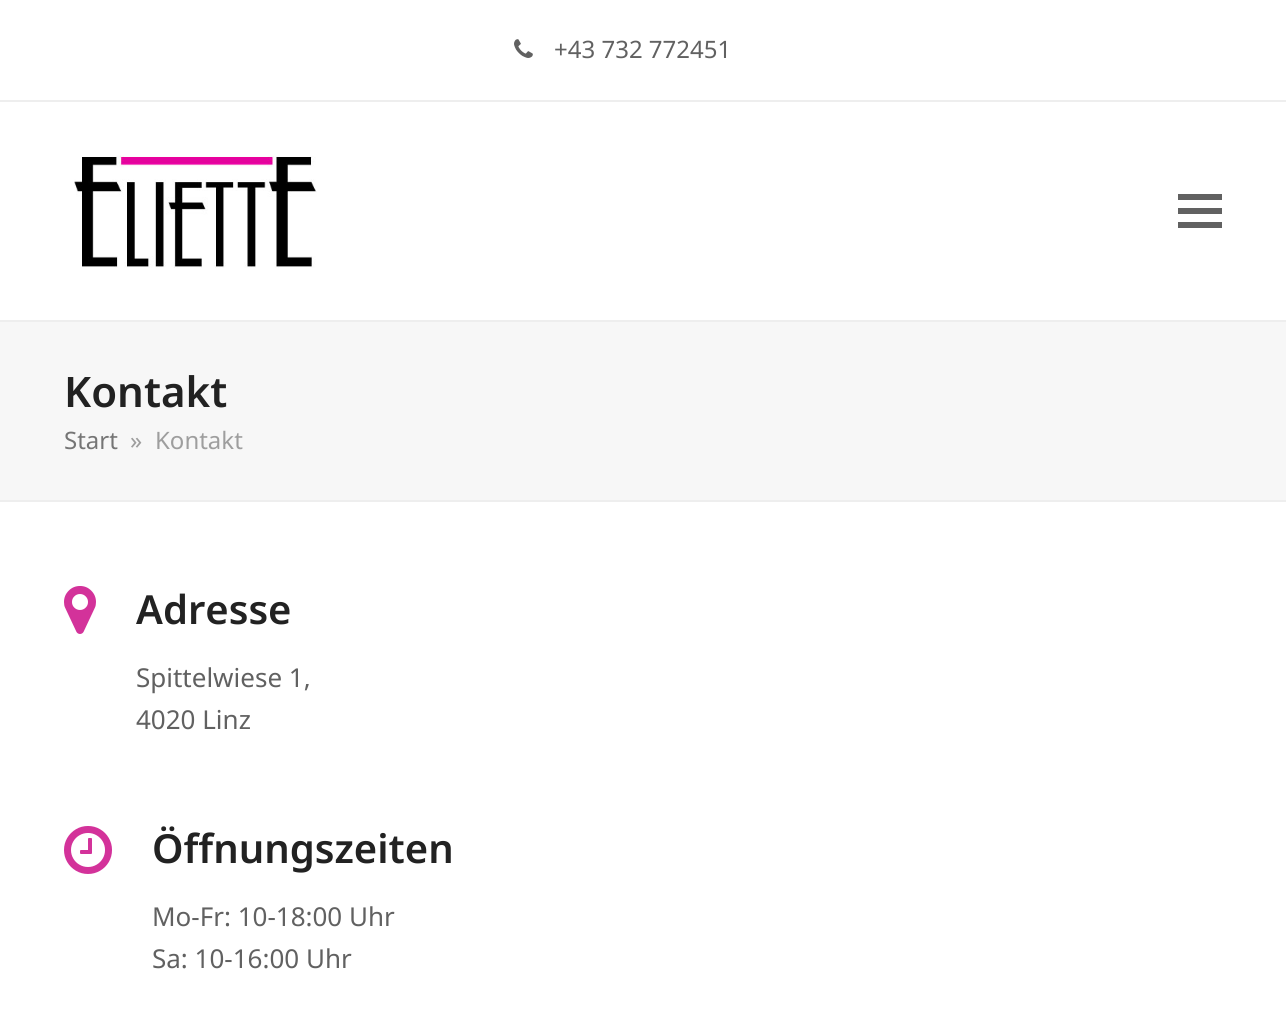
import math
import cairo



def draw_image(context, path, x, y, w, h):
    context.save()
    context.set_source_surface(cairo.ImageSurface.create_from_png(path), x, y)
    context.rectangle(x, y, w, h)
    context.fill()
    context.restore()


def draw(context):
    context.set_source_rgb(1, 1, 1)
    context.paint()
    context.set_source_rgb(238 / 255, 238 / 255, 238 / 255)
    context.rectangle(0, 100, 1286, 2)
    context.fill()
    draw_image(context, "images/1.png", 514, 39, 19, 19)
    draw_image(context, "images/2.png", 74, 155, 243, 113)
    context.set_source_rgb(97 / 255, 97 / 255, 97 / 255)
    context.rectangle(1178, 208, 44, 6)
    context.fill()
    context.rectangle(1178, 194, 44, 6)
    context.fill()
    context.rectangle(1178, 222, 44, 6)
    context.fill()
    context.set_source_rgb(247 / 255, 247 / 255, 247 / 255)
    context.rectangle(0, 322, 1286, 178)
    context.fill()
    context.set_source_rgb(238 / 255, 238 / 255, 238 / 255)
    context.rectangle(0, 320, 1286, 2)
    context.fill()
    context.rectangle(0, 500, 1286, 2)
    context.fill()
    draw_image(context, "images/3.png", 64, 586, 32, 48)
    draw_image(context, "images/4.png", 64, 826, 48, 48)
    context.select_font_face("Noto Sans")
    context.set_font_size(24)
    context.set_source_rgb(97 / 255, 97 / 255, 97 / 255)
    context.move_to(554, 58)
    context.show_text("+43 732 772451")
    context.select_font_face("Noto Sans SemiBold")
    context.set_font_size(42)
    context.set_source_rgb(34 / 255, 34 / 255, 34 / 255)
    context.move_to(64, 407)
    context.show_text("Kontakt")
    context.select_font_face("Noto Sans")
    context.set_font_size(24)
    context.set_source_rgb(117 / 255, 117 / 255, 117 / 255)
    context.move_to(64, 449)
    context.show_text("Start")
    context.set_source_rgb(158 / 255, 158 / 255, 158 / 255)
    context.move_to(130, 449)
    context.show_text("»")
    context.move_to(155, 449)
    context.show_text("Kontakt")
    context.select_font_face("Noto Sans SemiBold")
    context.set_font_size(40)
    context.set_source_rgb(34 / 255, 34 / 255, 34 / 255)
    context.move_to(136, 624)
    context.show_text("Adresse")
    context.select_font_face("Noto Sans")
    context.set_font_size(26)
    context.set_source_rgb(97 / 255, 97 / 255, 97 / 255)
    context.move_to(136, 687)
    context.show_text("Spittelwiese 1,")
    context.move_to(136, 729)
    context.show_text("4020 Linz")
    context.select_font_face("Noto Sans SemiBold")
    context.set_font_size(40)
    context.set_source_rgb(34 / 255, 34 / 255, 34 / 255)
    context.move_to(152, 863)
    context.show_text("Öffnungszeiten")
    context.select_font_face("Noto Sans")
    context.set_font_size(26)
    context.set_source_rgb(97 / 255, 97 / 255, 97 / 255)
    context.move_to(152, 926)
    context.show_text("Mo-Fr: 10-18:00 Uhr")
    context.move_to(152, 968)
    context.show_text("Sa: 10-16:00 Uhr")


surface = cairo.ImageSurface(cairo.Format.RGB24, 1286, 1018)
context = cairo.Context(surface)
options = cairo.FontOptions()
options.set_hint_metrics(cairo.HintMetrics.OFF)
options.set_hint_style(cairo.HintStyle.NONE)
context.set_font_options(options)
context.set_miter_limit(4)
draw(context)
surface.write_to_png("out.png")
